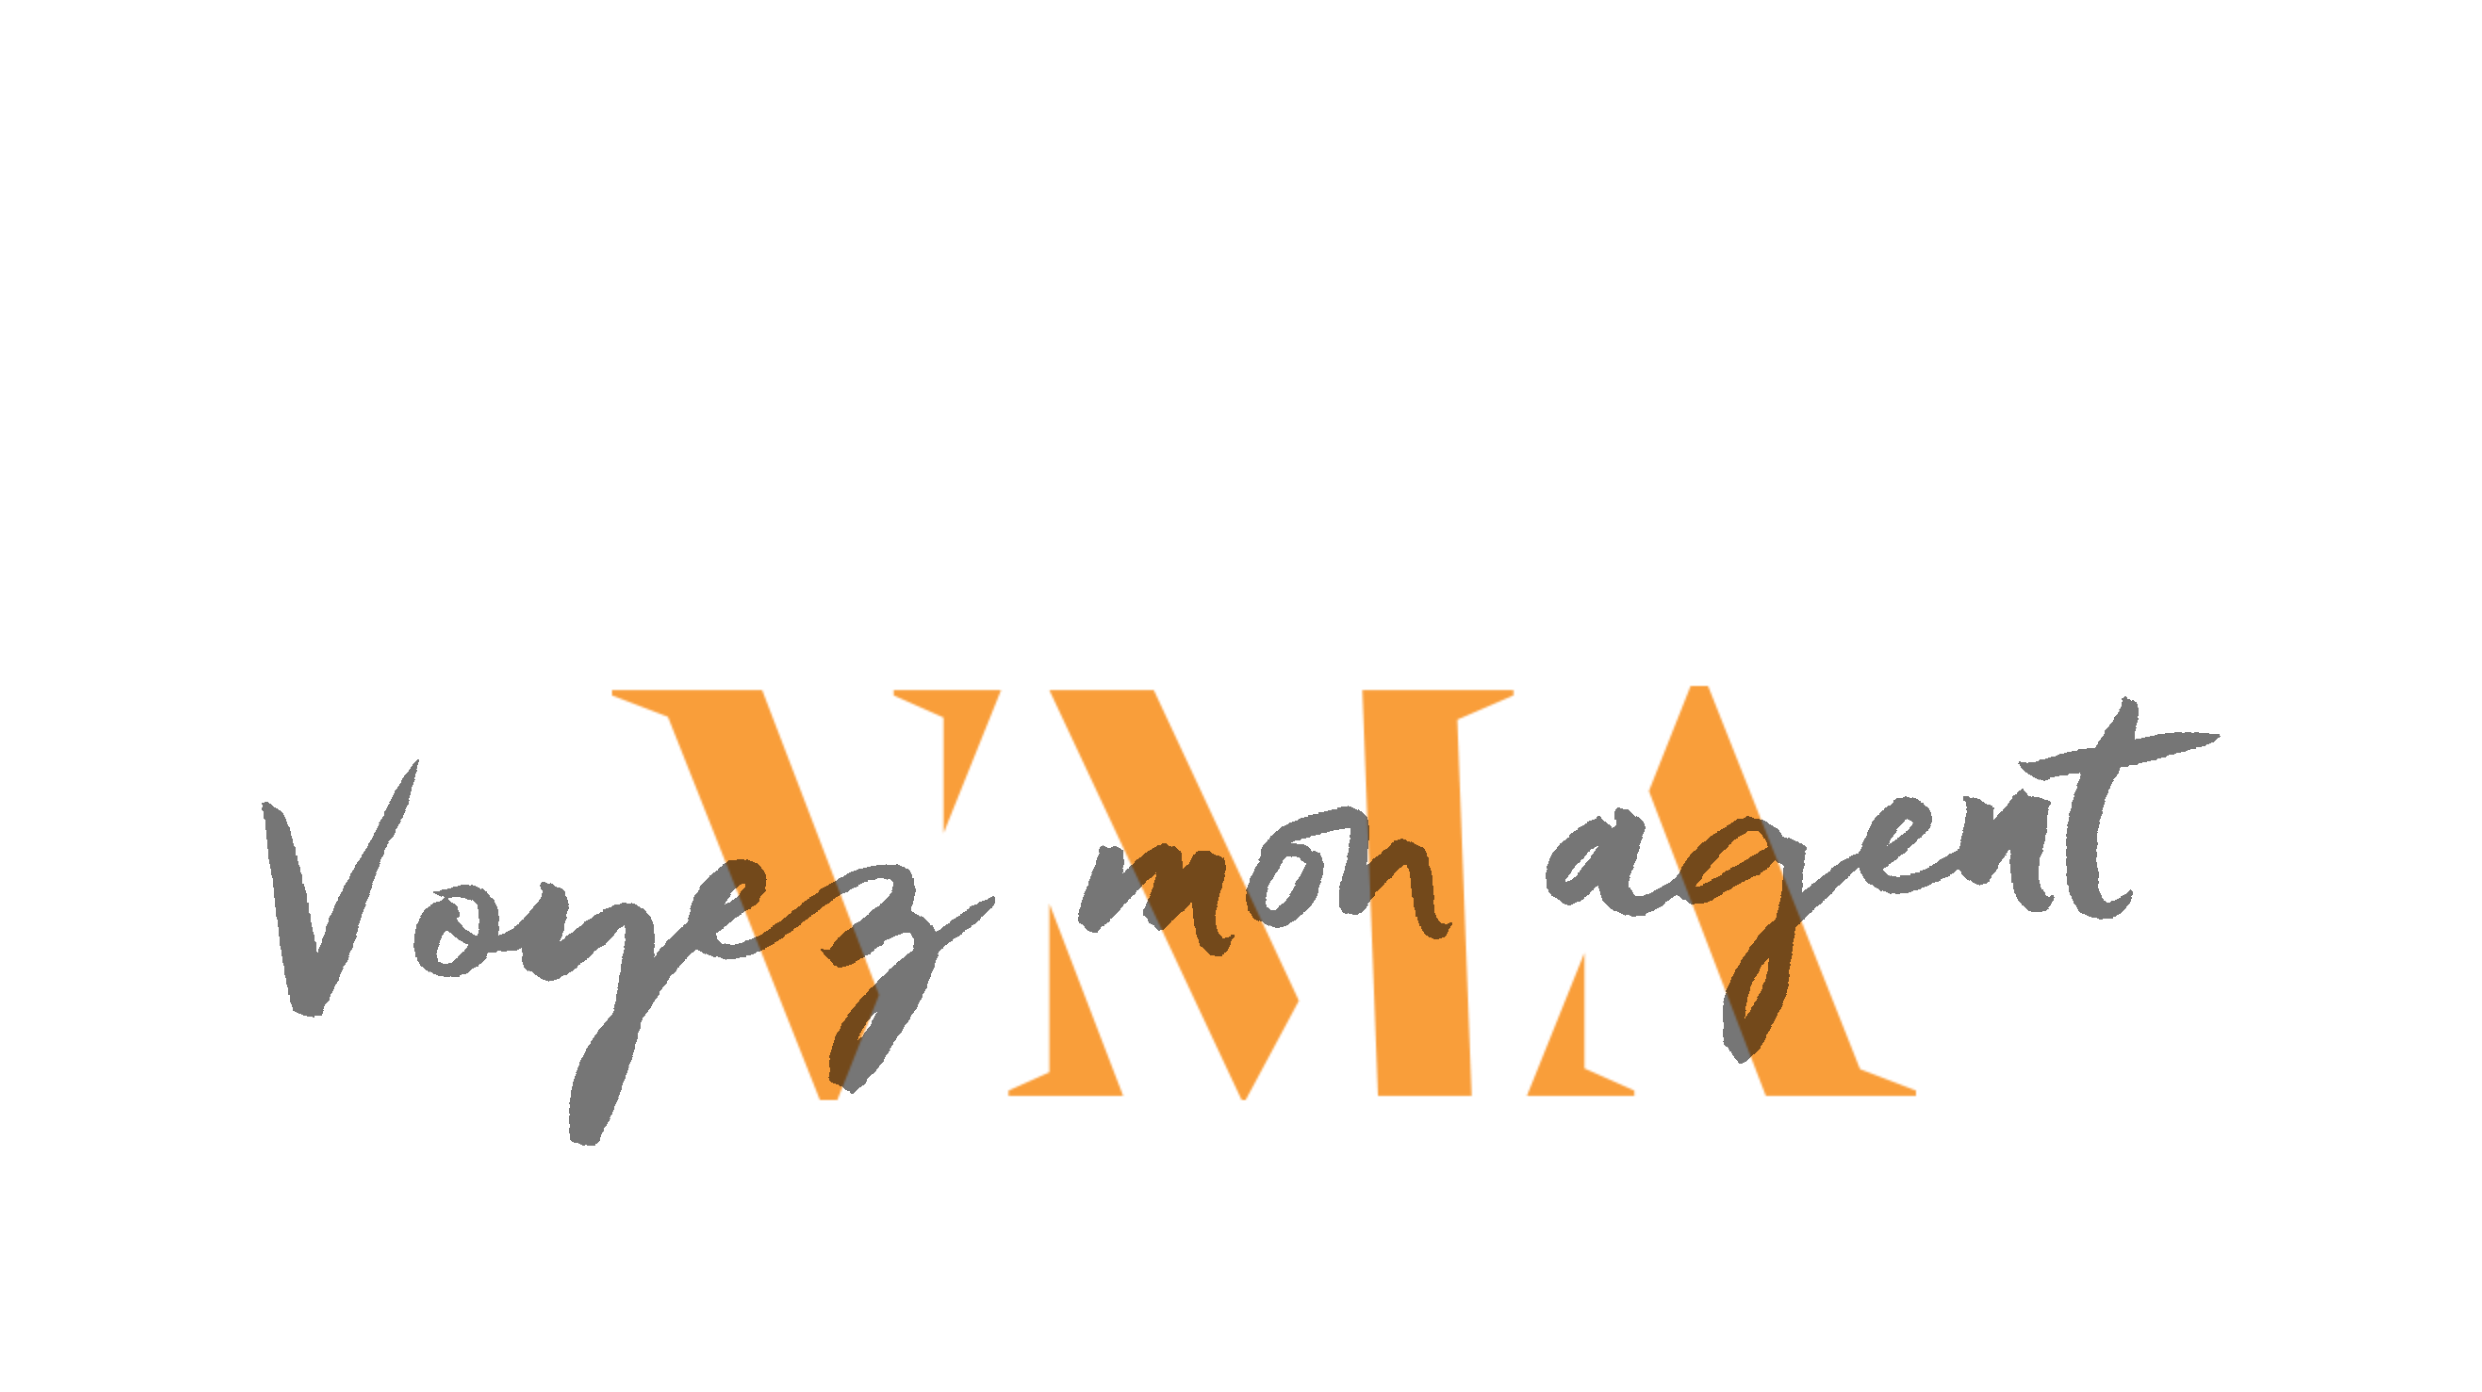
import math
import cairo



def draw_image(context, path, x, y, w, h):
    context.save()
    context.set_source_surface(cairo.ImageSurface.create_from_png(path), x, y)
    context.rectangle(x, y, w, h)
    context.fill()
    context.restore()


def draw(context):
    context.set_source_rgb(1, 1, 1)
    context.paint()
    draw_image(context, "images/1.png", 611, 685, 1306, 416)
    draw_image(context, "images/2.png", 261, 696, 1960, 450)


surface = cairo.ImageSurface(cairo.Format.RGB24, 2482, 1392)
context = cairo.Context(surface)
options = cairo.FontOptions()
options.set_hint_metrics(cairo.HintMetrics.OFF)
options.set_hint_style(cairo.HintStyle.NONE)
context.set_font_options(options)
context.set_miter_limit(4)
draw(context)
surface.write_to_png("out.png")
